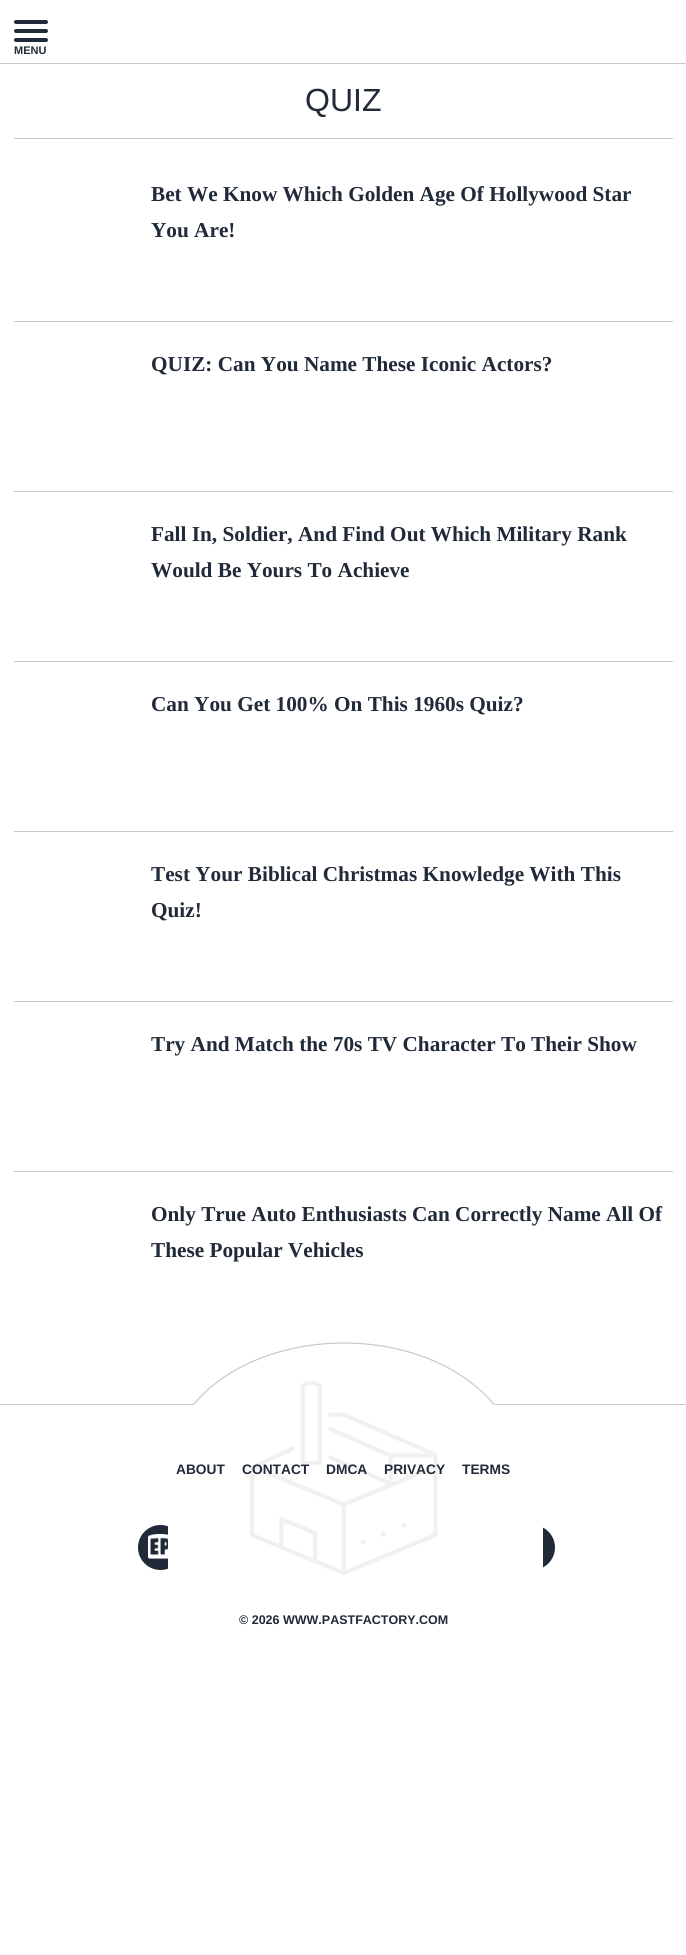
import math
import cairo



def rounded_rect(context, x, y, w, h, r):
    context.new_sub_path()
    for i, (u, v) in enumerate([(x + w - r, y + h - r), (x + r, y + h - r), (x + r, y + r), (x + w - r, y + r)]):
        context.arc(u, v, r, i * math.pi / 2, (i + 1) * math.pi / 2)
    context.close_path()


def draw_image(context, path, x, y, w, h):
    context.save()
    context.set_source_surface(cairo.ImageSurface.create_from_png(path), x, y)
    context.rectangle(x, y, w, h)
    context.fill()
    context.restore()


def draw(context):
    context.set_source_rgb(1, 1, 1)
    context.paint()
    context.set_source_rgb(33 / 255, 42 / 255, 57 / 255)
    rounded_rect(context, 14, 20, 34, 4, 2)
    context.fill()
    rounded_rect(context, 14, 29, 34, 4, 2)
    context.fill()
    rounded_rect(context, 14, 38, 34, 4, 2)
    context.fill()
    context.set_source_rgb(200 / 255, 200 / 255, 200 / 255)
    context.rectangle(0, 63, 686, 1)
    context.fill()
    context.rectangle(14, 138, 659, 1)
    context.fill()
    context.rectangle(14, 321, 659, 1)
    context.fill()
    context.rectangle(14, 491, 659, 1)
    context.fill()
    context.rectangle(14, 661, 659, 1)
    context.fill()
    context.rectangle(14, 831, 659, 1)
    context.fill()
    context.rectangle(14, 1001, 659, 1)
    context.fill()
    context.rectangle(14, 1171, 659, 1)
    context.fill()
    context.rectangle(0, 1404, 686, 1)
    context.fill()
    context.set_source_rgb(33 / 255, 42 / 255, 57 / 255)
    context.arc(160.5, 1547.5, 22.5, 0, 2 * math.pi)
    context.fill()
    context.arc(532.5, 1547.5, 22.5, 0, 2 * math.pi)
    context.fill()
    context.set_source_rgb(1, 1, 1)
    context.new_path()
    context.move_to(344, 1342.5)
    context.curve_to(440.5, 1342.5, 519, 1398.5, 519, 1467.5)
    context.curve_to(519, 1536.5, 440.5, 1592.5, 344, 1592.5)
    context.curve_to(247.5, 1592.5, 169, 1536.5, 169, 1467.5)
    context.curve_to(169, 1398.5, 247.5, 1342.5, 344, 1342.5)
    context.close_path()
    context.fill()
    context.new_path()
    context.move_to(344, 1343)
    context.curve_to(440, 1343, 518, 1399, 518, 1467.5)
    context.curve_to(518, 1536, 440, 1592, 344, 1592)
    context.curve_to(247.5, 1592, 169.5, 1536, 169.5, 1467.5)
    context.curve_to(169.5, 1399, 247.5, 1343, 344, 1343)
    context.close_path()
    context.set_source_rgb(200 / 255, 200 / 255, 200 / 255)
    context.set_line_width(1.2)
    context.stroke()
    context.set_source_rgb(1, 1, 1)
    context.rectangle(168, 1405, 375, 188)
    context.fill()
    draw_image(context, "images/1.png", 250, 1381, 188, 194)
    draw_image(context, "images/2.png", 148, 1534, 20, 25)
    context.select_font_face("Liberation Sans", cairo.FontSlant.NORMAL, cairo.FontWeight.BOLD)
    context.set_font_size(11)
    context.set_source_rgb(33 / 255, 42 / 255, 57 / 255)
    context.move_to(14, 54)
    context.show_text("MENU")
    context.select_font_face("Liberation Sans")
    context.set_font_size(32)
    context.move_to(305, 111)
    context.show_text("QUIZ")
    context.select_font_face("Liberation Serif", cairo.FontSlant.NORMAL, cairo.FontWeight.BOLD)
    context.set_font_size(21.25)
    context.move_to(151, 201)
    context.show_text("Bet We Know Which Golden Age Of Hollywood Star")
    context.move_to(151, 237)
    context.show_text("You Are!")
    context.move_to(151, 371)
    context.show_text("QUIZ: Can You Name These Iconic Actors?")
    context.move_to(151, 541)
    context.show_text("Fall In, Soldier, And Find Out Which Military Rank")
    context.move_to(151, 577)
    context.show_text("Would Be Yours To Achieve")
    context.move_to(151, 711)
    context.show_text("Can You Get 100% On This 1960s Quiz?")
    context.move_to(151, 881)
    context.show_text("Test Your Biblical Christmas Knowledge With This")
    context.move_to(151, 917)
    context.show_text("Quiz!")
    context.move_to(151, 1051)
    context.show_text("Try And Match the 70s TV Character To Their Show")
    context.move_to(151, 1221)
    context.show_text("Only True Auto Enthusiasts Can Correctly Name All Of")
    context.move_to(151, 1257)
    context.show_text("These Popular Vehicles")
    context.select_font_face("Liberation Sans", cairo.FontSlant.NORMAL, cairo.FontWeight.BOLD)
    context.set_font_size(13.75)
    context.move_to(176, 1474)
    context.show_text("ABOUT")
    context.move_to(242, 1474)
    context.show_text("CONTACT")
    context.move_to(326, 1474)
    context.show_text("DMCA")
    context.move_to(384, 1474)
    context.show_text("PRIVACY")
    context.move_to(462, 1474)
    context.show_text("TERMS")
    context.set_font_size(12.5)
    context.move_to(239, 1624)
    context.show_text("© 2026 WWW.PASTFACTORY.COM")


surface = cairo.ImageSurface(cairo.Format.RGB24, 686, 1955)
context = cairo.Context(surface)
options = cairo.FontOptions()
options.set_hint_metrics(cairo.HintMetrics.OFF)
options.set_hint_style(cairo.HintStyle.NONE)
context.set_font_options(options)
context.set_miter_limit(4)
draw(context)
surface.write_to_png("out.png")
